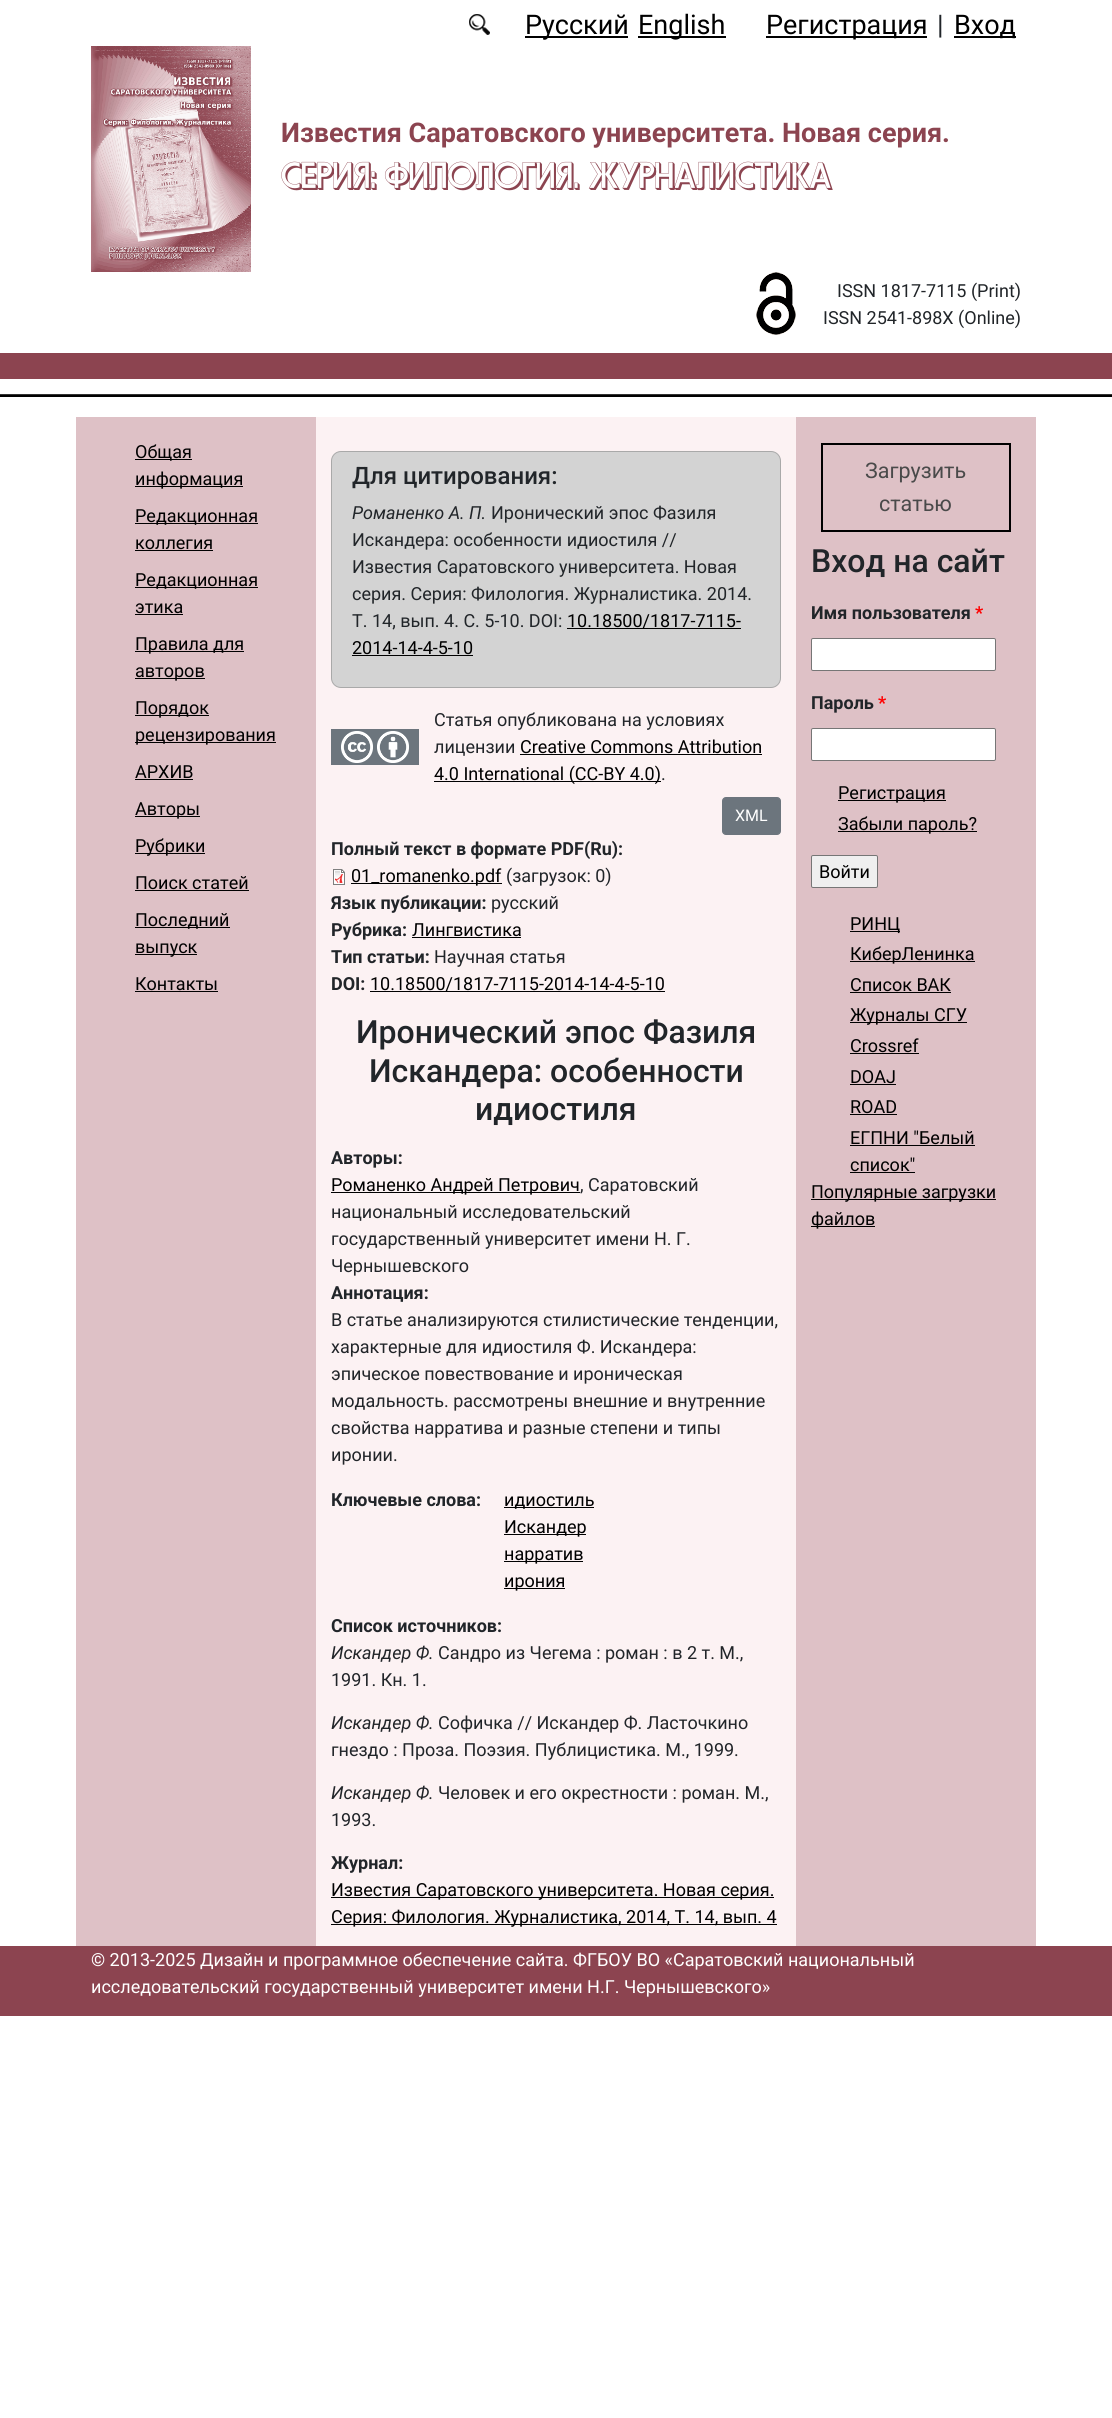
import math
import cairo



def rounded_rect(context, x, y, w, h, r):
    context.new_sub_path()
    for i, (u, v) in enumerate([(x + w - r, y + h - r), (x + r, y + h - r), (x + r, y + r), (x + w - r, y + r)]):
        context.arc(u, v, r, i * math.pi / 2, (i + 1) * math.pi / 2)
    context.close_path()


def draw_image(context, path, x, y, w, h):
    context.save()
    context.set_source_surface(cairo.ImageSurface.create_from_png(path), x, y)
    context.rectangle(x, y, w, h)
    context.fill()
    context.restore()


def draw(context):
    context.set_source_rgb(1, 1, 1)
    context.paint()
    draw_image(context, "images/1.png", 469, 14, 21, 21)
    context.set_source_rgb(0, 0, 0)
    context.rectangle(525, 36, 103, 2)
    context.fill()
    context.rectangle(638, 36, 88, 2)
    context.fill()
    context.rectangle(766, 36, 161, 2)
    context.fill()
    context.rectangle(954, 36, 62, 2)
    context.fill()
    draw_image(context, "images/2.png", 91, 46, 160, 226)
    draw_image(context, "images/3.png", 756, 272, 40, 63)
    context.set_source_rgb(140 / 255, 68 / 255, 80 / 255)
    context.rectangle(0, 353, 1112, 26)
    context.fill()
    context.set_source_rgb(51 / 255, 51 / 255, 51 / 255)
    context.rectangle(0, 394, 1112, 1)
    context.fill()
    context.set_source_rgb(0, 0, 0)
    context.rectangle(0, 395, 1112, 2)
    context.fill()
    context.set_source_rgb(222 / 255, 193 / 255, 198 / 255)
    context.rectangle(76, 417, 240, 1529)
    context.fill()
    context.set_source_rgb(0, 0, 0)
    context.rectangle(135, 459, 57, 1)
    context.fill()
    context.rectangle(135, 486, 108, 1)
    context.fill()
    context.rectangle(135, 523, 123, 1)
    context.fill()
    context.rectangle(135, 550, 78, 1)
    context.fill()
    context.rectangle(135, 587, 123, 1)
    context.fill()
    context.rectangle(135, 614, 48, 1)
    context.fill()
    context.rectangle(135, 651, 109, 1)
    context.fill()
    context.rectangle(135, 678, 70, 1)
    context.fill()
    context.rectangle(135, 715, 74, 1)
    context.fill()
    context.rectangle(135, 742, 141, 1)
    context.fill()
    context.rectangle(135, 779, 58, 1)
    context.fill()
    context.rectangle(135, 816, 65, 1)
    context.fill()
    context.rectangle(135, 853, 70, 1)
    context.fill()
    context.rectangle(135, 890, 114, 1)
    context.fill()
    context.rectangle(135, 927, 95, 1)
    context.fill()
    context.rectangle(135, 954, 62, 1)
    context.fill()
    context.rectangle(135, 991, 83, 1)
    context.fill()
    context.set_source_rgb(252 / 255, 242 / 255, 243 / 255)
    context.rectangle(316, 417, 480, 1529)
    context.fill()
    context.set_source_rgb(211 / 255, 211 / 255, 211 / 255)
    rounded_rect(context, 331.5, 451.5, 449, 236, 9.5)
    context.fill_preserve()
    context.set_source_rgb(169 / 255, 169 / 255, 169 / 255)
    context.set_line_width(1)
    context.stroke()
    context.set_source_rgb(0, 0, 0)
    context.rectangle(567, 628, 174, 1)
    context.fill()
    context.rectangle(352, 655, 121, 1)
    context.fill()
    context.set_source_rgb(108 / 255, 117 / 255, 125 / 255)
    context.rectangle(331, 729, 88, 36)
    context.fill()
    draw_image(context, "images/4.png", 341, 731, 32, 32)
    draw_image(context, "images/5.png", 377, 731, 32, 32)
    context.set_source_rgb(0, 0, 0)
    context.rectangle(520, 754, 242, 1)
    context.fill()
    context.rectangle(434, 781, 227, 1)
    context.fill()
    context.set_source_rgb(108 / 255, 117 / 255, 125 / 255)
    rounded_rect(context, 722.5, 797.5, 58, 37, 3.5)
    context.fill_preserve()
    context.stroke()
    draw_image(context, "images/6.png", 333, 869, 12, 16)
    context.set_source_rgb(0, 0, 0)
    context.rectangle(351, 883, 151, 1)
    context.fill()
    context.rectangle(412, 937, 109, 1)
    context.fill()
    context.rectangle(370, 991, 295, 1)
    context.fill()
    context.rectangle(331, 1192, 249, 1)
    context.fill()
    context.rectangle(504, 1507, 90, 1)
    context.fill()
    context.rectangle(504, 1534, 82, 1)
    context.fill()
    context.rectangle(504, 1561, 79, 1)
    context.fill()
    context.rectangle(504, 1588, 61, 1)
    context.fill()
    context.rectangle(331, 1897, 443, 1)
    context.fill()
    context.rectangle(331, 1924, 446, 1)
    context.fill()
    context.set_source_rgb(222 / 255, 193 / 255, 198 / 255)
    context.rectangle(796, 417, 240, 1529)
    context.fill()
    context.rectangle(822, 444, 188, 87)
    context.set_source_rgb(0, 0, 0)
    context.set_line_width(2)
    context.stroke()
    context.set_source_rgb(1, 1, 1)
    rounded_rect(context, 811.5, 638.5, 184, 32, 1.5)
    context.fill_preserve()
    context.set_source_rgb(118 / 255, 118 / 255, 118 / 255)
    context.set_line_width(1)
    context.stroke()
    context.set_source_rgb(1, 1, 1)
    rounded_rect(context, 811.5, 728.5, 184, 32, 1.5)
    context.fill_preserve()
    context.set_source_rgb(118 / 255, 118 / 255, 118 / 255)
    context.stroke()
    context.set_source_rgb(0, 0, 0)
    context.rectangle(838, 800, 108, 1)
    context.fill()
    context.rectangle(838, 831, 139, 1)
    context.fill()
    context.set_source_rgb(239 / 255, 239 / 255, 239 / 255)
    rounded_rect(context, 811.5, 855.5, 66, 32, 1.5)
    context.fill_preserve()
    context.set_source_rgb(118 / 255, 118 / 255, 118 / 255)
    context.stroke()
    context.set_source_rgb(0, 0, 0)
    context.rectangle(850, 931, 50, 1)
    context.fill()
    context.rectangle(850, 961, 125, 1)
    context.fill()
    context.rectangle(850, 992, 101, 1)
    context.fill()
    context.rectangle(850, 1022, 117, 1)
    context.fill()
    context.rectangle(850, 1053, 69, 1)
    context.fill()
    context.rectangle(850, 1084, 46, 1)
    context.fill()
    context.rectangle(850, 1114, 47, 1)
    context.fill()
    context.rectangle(850, 1145, 125, 1)
    context.fill()
    context.rectangle(850, 1172, 65, 1)
    context.fill()
    context.rectangle(811, 1199, 185, 1)
    context.fill()
    context.rectangle(811, 1226, 64, 1)
    context.fill()
    context.set_source_rgb(140 / 255, 68 / 255, 80 / 255)
    context.rectangle(0, 1946, 1112, 70)
    context.fill()
    context.select_font_face("Roboto")
    context.set_font_size(27)
    context.set_source_rgb(0, 0, 0)
    context.move_to(525, 34)
    context.show_text("Русский")
    context.move_to(638, 34)
    context.show_text("English")
    context.move_to(766, 34)
    context.show_text("Регистрация")
    context.set_source_rgb(33 / 255, 37 / 255, 41 / 255)
    context.move_to(937, 34)
    context.show_text("|")
    context.set_source_rgb(0, 0, 0)
    context.move_to(954, 34)
    context.show_text("Вход")
    context.select_font_face("Roboto", cairo.FontSlant.NORMAL, cairo.FontWeight.BOLD)
    context.set_source_rgb(140 / 255, 68 / 255, 80 / 255)
    context.move_to(281, 142)
    context.show_text("Известия Саратовского университета. Новая серия.")
    context.select_font_face("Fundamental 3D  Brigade")
    context.set_font_size(36)
    context.move_to(281, 188)
    context.show_text("СЕРИЯ: ФИЛОЛОГИЯ. ЖУРНАЛИСТИКА")
    context.select_font_face("Roboto")
    context.set_font_size(18)
    context.set_source_rgb(33 / 255, 37 / 255, 41 / 255)
    context.move_to(837, 297)
    context.show_text("ISSN 1817-7115 (Print)")
    context.move_to(823, 324)
    context.show_text("ISSN 2541-898X (Online)")
    context.set_source_rgb(0, 0, 0)
    context.move_to(135, 458)
    context.show_text("Общая")
    context.move_to(135, 485)
    context.show_text("информация")
    context.move_to(135, 522)
    context.show_text("Редакционная")
    context.move_to(135, 549)
    context.show_text("коллегия")
    context.move_to(135, 586)
    context.show_text("Редакционная")
    context.move_to(135, 613)
    context.show_text("этика")
    context.move_to(135, 650)
    context.show_text("Правила для")
    context.move_to(135, 677)
    context.show_text("авторов")
    context.move_to(135, 714)
    context.show_text("Порядок")
    context.move_to(135, 741)
    context.show_text("рецензирования")
    context.move_to(135, 778)
    context.show_text("АРХИВ")
    context.move_to(135, 815)
    context.show_text("Авторы")
    context.move_to(135, 852)
    context.show_text("Рубрики")
    context.move_to(135, 889)
    context.show_text("Поиск статей")
    context.move_to(135, 926)
    context.show_text("Последний")
    context.move_to(135, 953)
    context.show_text("выпуск")
    context.move_to(135, 990)
    context.show_text("Контакты")
    context.select_font_face("Roboto Medium")
    context.set_font_size(24)
    context.set_source_rgb(33 / 255, 37 / 255, 41 / 255)
    context.move_to(352, 484)
    context.show_text("Для цитирования:")
    context.select_font_face("Roboto", cairo.FontSlant.ITALIC)
    context.set_font_size(18)
    context.move_to(352, 519)
    context.show_text("Романенко А. П.")
    context.select_font_face("Roboto")
    context.move_to(491, 519)
    context.show_text("Иронический эпос Фазиля")
    context.move_to(352, 546)
    context.show_text("Искандера: особенности идиостиля //")
    context.move_to(352, 573)
    context.show_text("Известия Саратовского университета. Новая")
    context.move_to(352, 600)
    context.show_text("серия. Серия: Филология. Журналистика. 2014.")
    context.move_to(352, 627)
    context.show_text("Т. 14, вып. 4. С. 5-10. DOI:")
    context.set_source_rgb(0, 0, 0)
    context.move_to(567, 627)
    context.show_text("10.18500/1817-7115-")
    context.move_to(352, 654)
    context.show_text("2014-14-4-5-10")
    context.set_source_rgb(33 / 255, 37 / 255, 41 / 255)
    context.move_to(434, 726)
    context.show_text("Статья опубликована на условиях")
    context.move_to(434, 753)
    context.show_text("лицензии")
    context.set_source_rgb(0, 0, 0)
    context.move_to(520, 753)
    context.show_text("Creative Commons Attribution")
    context.move_to(434, 780)
    context.show_text("4.0 International (CC-BY 4.0)")
    context.set_source_rgb(33 / 255, 37 / 255, 41 / 255)
    context.move_to(661, 780)
    context.show_text(".")
    context.set_font_size(16)
    context.set_source_rgb(1, 1, 1)
    context.move_to(735, 821)
    context.show_text("XML")
    context.select_font_face("Roboto", cairo.FontSlant.NORMAL, cairo.FontWeight.BOLD)
    context.set_font_size(18)
    context.set_source_rgb(33 / 255, 37 / 255, 41 / 255)
    context.move_to(331, 855)
    context.show_text("Полный текст в формате PDF(Ru):")
    context.select_font_face("Roboto")
    context.set_source_rgb(0, 0, 0)
    context.move_to(351, 882)
    context.show_text("01_romanenko.pdf")
    context.set_source_rgb(33 / 255, 37 / 255, 41 / 255)
    context.move_to(506, 882)
    context.show_text("(загрузок: 0)")
    context.select_font_face("Roboto", cairo.FontSlant.NORMAL, cairo.FontWeight.BOLD)
    context.move_to(331, 909)
    context.show_text("Язык публикации:")
    context.select_font_face("Roboto")
    context.move_to(491, 909)
    context.show_text("русский")
    context.select_font_face("Roboto", cairo.FontSlant.NORMAL, cairo.FontWeight.BOLD)
    context.move_to(331, 936)
    context.show_text("Рубрика:")
    context.select_font_face("Roboto")
    context.set_source_rgb(0, 0, 0)
    context.move_to(412, 936)
    context.show_text("Лингвистика")
    context.select_font_face("Roboto", cairo.FontSlant.NORMAL, cairo.FontWeight.BOLD)
    context.set_source_rgb(33 / 255, 37 / 255, 41 / 255)
    context.move_to(331, 963)
    context.show_text("Тип статьи:")
    context.select_font_face("Roboto")
    context.move_to(434, 963)
    context.show_text("Научная статья")
    context.select_font_face("Roboto", cairo.FontSlant.NORMAL, cairo.FontWeight.BOLD)
    context.move_to(331, 990)
    context.show_text("DOI:")
    context.select_font_face("Roboto")
    context.set_source_rgb(0, 0, 0)
    context.move_to(370, 990)
    context.show_text("10.18500/1817-7115-2014-14-4-5-10")
    context.select_font_face("Roboto Medium")
    context.set_font_size(32)
    context.set_source_rgb(33 / 255, 37 / 255, 41 / 255)
    context.move_to(356, 1043)
    context.show_text("Иронический эпос Фазиля")
    context.move_to(369, 1082)
    context.show_text("Искандера: особенности")
    context.move_to(475, 1120)
    context.show_text("идиостиля")
    context.select_font_face("Roboto", cairo.FontSlant.NORMAL, cairo.FontWeight.BOLD)
    context.set_font_size(18)
    context.move_to(331, 1164)
    context.show_text("Авторы:")
    context.select_font_face("Roboto")
    context.set_source_rgb(0, 0, 0)
    context.move_to(331, 1191)
    context.show_text("Романенко Андрей Петрович")
    context.set_source_rgb(33 / 255, 37 / 255, 41 / 255)
    context.move_to(580, 1191)
    context.show_text(", Саратовский")
    context.move_to(331, 1218)
    context.show_text("национальный исследовательский")
    context.move_to(331, 1245)
    context.show_text("государственный университет имени Н. Г.")
    context.move_to(331, 1272)
    context.show_text("Чернышевского")
    context.select_font_face("Roboto", cairo.FontSlant.NORMAL, cairo.FontWeight.BOLD)
    context.move_to(331, 1299)
    context.show_text("Аннотация:")
    context.select_font_face("Roboto")
    context.move_to(331, 1326)
    context.show_text("В статье анализируются стилистические тенденции,")
    context.move_to(331, 1353)
    context.show_text("характерные для идиостиля Ф. Искандера:")
    context.move_to(331, 1380)
    context.show_text("эпическое повествование и ироническая")
    context.move_to(331, 1407)
    context.show_text("модальность. рассмотрены внешние и внутренние")
    context.move_to(331, 1434)
    context.show_text("свойства нарратива и разные степени и типы")
    context.move_to(331, 1461)
    context.show_text("иронии.")
    context.select_font_face("Roboto", cairo.FontSlant.NORMAL, cairo.FontWeight.BOLD)
    context.move_to(331, 1506)
    context.show_text("Ключевые слова:")
    context.select_font_face("Roboto")
    context.set_source_rgb(0, 0, 0)
    context.move_to(504, 1506)
    context.show_text("идиостиль")
    context.move_to(504, 1533)
    context.show_text("Искандер")
    context.move_to(504, 1560)
    context.show_text("нарратив")
    context.move_to(504, 1587)
    context.show_text("ирония")
    context.select_font_face("Roboto", cairo.FontSlant.NORMAL, cairo.FontWeight.BOLD)
    context.set_source_rgb(33 / 255, 37 / 255, 41 / 255)
    context.move_to(331, 1632)
    context.show_text("Список источников:")
    context.select_font_face("Roboto", cairo.FontSlant.ITALIC)
    context.move_to(331, 1659)
    context.show_text("Искандер Ф.")
    context.select_font_face("Roboto")
    context.move_to(438, 1659)
    context.show_text("Сандро из Чегема : роман : в 2 т. М.,")
    context.move_to(331, 1686)
    context.show_text("1991. Кн. 1.")
    context.select_font_face("Roboto", cairo.FontSlant.ITALIC)
    context.move_to(331, 1729)
    context.show_text("Искандер Ф.")
    context.select_font_face("Roboto")
    context.move_to(438, 1729)
    context.show_text("Софичка // Искандер Ф. Ласточкино")
    context.move_to(331, 1756)
    context.show_text("гнездо : Проза. Поэзия. Публицистика. М., 1999.")
    context.select_font_face("Roboto", cairo.FontSlant.ITALIC)
    context.move_to(331, 1799)
    context.show_text("Искандер Ф.")
    context.select_font_face("Roboto")
    context.move_to(438, 1799)
    context.show_text("Человек и его окрестности : роман. М.,")
    context.move_to(331, 1826)
    context.show_text("1993.")
    context.select_font_face("Roboto", cairo.FontSlant.NORMAL, cairo.FontWeight.BOLD)
    context.move_to(331, 1869)
    context.show_text("Журнал:")
    context.select_font_face("Roboto")
    context.set_source_rgb(0, 0, 0)
    context.move_to(331, 1896)
    context.show_text("Известия Саратовского университета. Новая серия.")
    context.move_to(331, 1923)
    context.show_text("Серия: Филология. Журналистика, 2014, Т. 14, вып. 4")
    context.set_font_size(21.5)
    context.set_source_rgb(74 / 255, 74 / 255, 74 / 255)
    context.move_to(865, 478)
    context.show_text("Загрузить")
    context.move_to(879, 511)
    context.show_text("статью")
    context.select_font_face("Roboto Medium")
    context.set_font_size(32)
    context.set_source_rgb(33 / 255, 37 / 255, 41 / 255)
    context.move_to(811, 572)
    context.show_text("Вход на сайт")
    context.select_font_face("Roboto", cairo.FontSlant.NORMAL, cairo.FontWeight.BOLD)
    context.set_font_size(18)
    context.move_to(811, 619)
    context.show_text("Имя пользователя")
    context.set_source_rgb(1, 0, 0)
    context.move_to(975, 619)
    context.show_text("*")
    context.set_source_rgb(33 / 255, 37 / 255, 41 / 255)
    context.move_to(811, 709)
    context.show_text("Пароль")
    context.set_source_rgb(1, 0, 0)
    context.move_to(878, 709)
    context.show_text("*")
    context.select_font_face("Roboto")
    context.set_source_rgb(0, 0, 0)
    context.move_to(838, 799)
    context.show_text("Регистрация")
    context.move_to(838, 830)
    context.show_text("Забыли пароль?")
    context.move_to(819, 878)
    context.show_text("Войти")
    context.move_to(850, 930)
    context.show_text("РИНЦ")
    context.move_to(850, 960)
    context.show_text("КиберЛенинка")
    context.move_to(850, 991)
    context.show_text("Список ВАК")
    context.move_to(850, 1021)
    context.show_text("Журналы СГУ")
    context.move_to(850, 1052)
    context.show_text("Crossref")
    context.move_to(850, 1083)
    context.show_text("DOAJ")
    context.move_to(850, 1113)
    context.show_text("ROAD")
    context.move_to(850, 1144)
    context.show_text("ЕГПНИ \"Белый")
    context.move_to(850, 1171)
    context.show_text("список\"")
    context.move_to(811, 1198)
    context.show_text("Популярные загрузки")
    context.move_to(811, 1225)
    context.show_text("файлов")
    context.set_source_rgb(1, 1, 1)
    context.move_to(91, 1966)
    context.show_text("© 2013-2025 Дизайн и программное обеспечение сайта. ФГБОУ ВО «Саратовский национальный")
    context.move_to(91, 1993)
    context.show_text("исследовательский государственный университет имени Н.Г. Чернышевского»")


surface = cairo.ImageSurface(cairo.Format.RGB24, 1112, 2418)
context = cairo.Context(surface)
options = cairo.FontOptions()
options.set_hint_metrics(cairo.HintMetrics.OFF)
options.set_hint_style(cairo.HintStyle.NONE)
context.set_font_options(options)
context.set_miter_limit(4)
draw(context)
surface.write_to_png("out.png")
